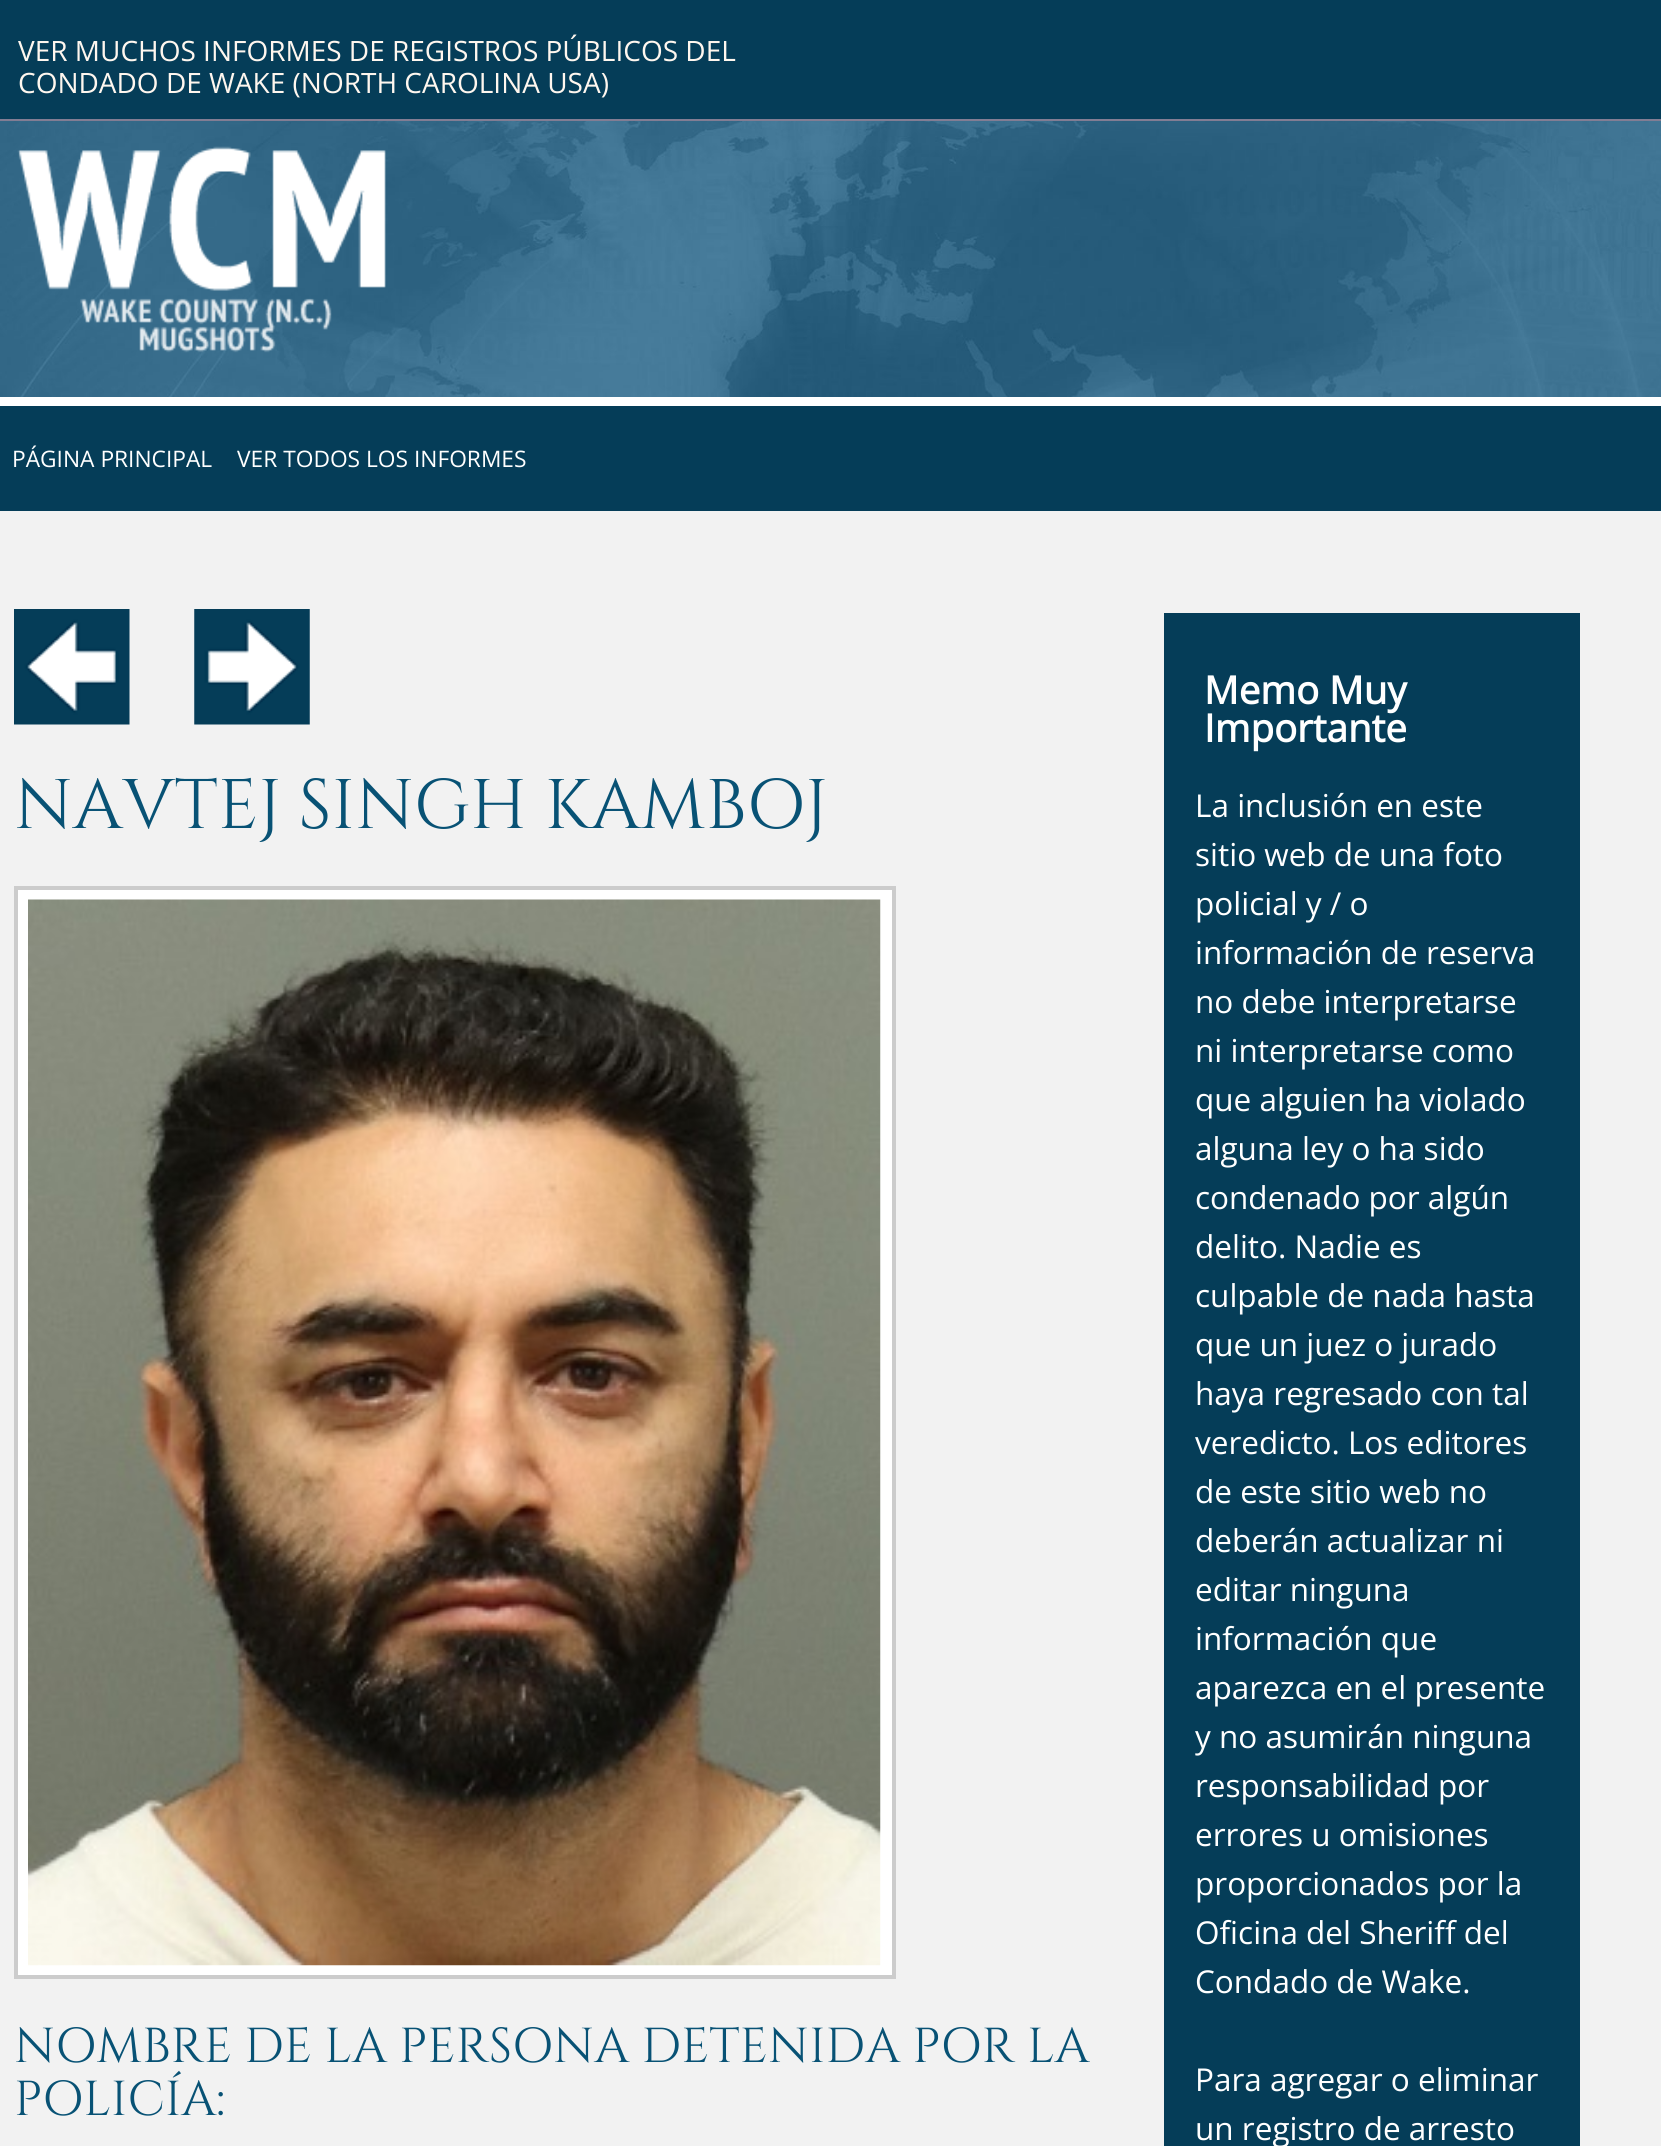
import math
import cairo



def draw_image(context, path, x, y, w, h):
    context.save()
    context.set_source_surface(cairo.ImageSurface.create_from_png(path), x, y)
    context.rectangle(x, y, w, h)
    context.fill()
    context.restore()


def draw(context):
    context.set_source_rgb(5 / 255, 61 / 255, 88 / 255)
    context.paint()
    draw_image(context, "images/1.png", 0, 121, 1661, 276)
    context.set_source_rgb(130 / 255, 125 / 255, 147 / 255)
    context.rectangle(0, 119, 1661, 2)
    context.fill()
    context.set_source_rgb(1, 1, 1)
    context.rectangle(0, 397, 1661, 9)
    context.fill()
    draw_image(context, "images/2.png", 17, 146, 369, 207)
    context.set_source_rgb(242 / 255, 242 / 255, 242 / 255)
    context.rectangle(0, 511, 1661, 1635)
    context.fill()
    draw_image(context, "images/3.png", 14, 609, 116, 116)
    draw_image(context, "images/4.png", 194, 609, 116, 116)
    context.set_source_rgb(1, 1, 1)
    context.rectangle(16, 888, 878, 1089)
    context.fill_preserve()
    context.set_source_rgb(204 / 255, 204 / 255, 204 / 255)
    context.set_line_width(4)
    context.stroke()
    draw_image(context, "images/5.png", 28, 899, 853, 1067)
    context.set_source_rgb(5 / 255, 61 / 255, 88 / 255)
    context.rectangle(1164, 613, 416, 1533)
    context.fill()
    context.select_font_face("Open Sans")
    context.set_font_size(28)
    context.set_source_rgb(1, 247 / 255, 239 / 255)
    context.move_to(18, 61)
    context.show_text("VER MUCHOS INFORMES DE REGISTROS PÚBLICOS DEL")
    context.move_to(18, 93)
    context.show_text("CONDADO DE WAKE (NORTH CAROLINA USA)")
    context.set_font_size(22.75)
    context.set_source_rgb(1, 1, 1)
    context.move_to(12, 467)
    context.show_text("PÁGINA PRINCIPAL")
    context.move_to(237, 467)
    context.show_text("VER TODOS LOS INFORMES")
    context.select_font_face("Cinzel")
    context.set_font_size(70)
    context.set_source_rgb(8 / 255, 82 / 255, 117 / 255)
    context.move_to(14, 828)
    context.show_text("NAVTEJ SINGH KAMBOJ")
    context.set_font_size(49)
    context.move_to(14, 2062)
    context.show_text("NOMBRE DE LA PERSONA DETENIDA POR LA")
    context.move_to(14, 2115)
    context.show_text("POLICÍA:")
    context.select_font_face("Open Sans", cairo.FontSlant.NORMAL, cairo.FontWeight.BOLD)
    context.set_font_size(38.5)
    context.set_source_rgb(1, 1, 1)
    context.move_to(1204, 704)
    context.show_text("Memo Muy")
    context.move_to(1204, 742)
    context.show_text("Importante")
    context.select_font_face("Open Sans")
    context.set_font_size(31.5)
    context.move_to(1195, 817)
    context.show_text("La inclusión en este")
    context.move_to(1195, 866)
    context.show_text("sitio web de una foto")
    context.move_to(1195, 915)
    context.show_text("policial y / o")
    context.move_to(1195, 964)
    context.show_text("información de reserva")
    context.move_to(1195, 1013)
    context.show_text("no debe interpretarse")
    context.move_to(1195, 1062)
    context.show_text("ni interpretarse como")
    context.move_to(1195, 1111)
    context.show_text("que alguien ha violado")
    context.move_to(1195, 1160)
    context.show_text("alguna ley o ha sido")
    context.move_to(1195, 1209)
    context.show_text("condenado por algún")
    context.move_to(1195, 1258)
    context.show_text("delito. Nadie es")
    context.move_to(1195, 1307)
    context.show_text("culpable de nada hasta")
    context.move_to(1195, 1356)
    context.show_text("que un juez o jurado")
    context.move_to(1195, 1405)
    context.show_text("haya regresado con tal")
    context.move_to(1195, 1454)
    context.show_text("veredicto. Los editores")
    context.move_to(1195, 1503)
    context.show_text("de este sitio web no")
    context.move_to(1195, 1552)
    context.show_text("deberán actualizar ni")
    context.move_to(1195, 1601)
    context.show_text("editar ninguna")
    context.move_to(1195, 1650)
    context.show_text("información que")
    context.move_to(1195, 1699)
    context.show_text("aparezca en el presente")
    context.move_to(1195, 1748)
    context.show_text("y no asumirán ninguna")
    context.move_to(1195, 1797)
    context.show_text("responsabilidad por")
    context.move_to(1195, 1846)
    context.show_text("errores u omisiones")
    context.move_to(1195, 1895)
    context.show_text("proporcionados por la")
    context.move_to(1195, 1944)
    context.show_text("Oficina del Sheriff del")
    context.move_to(1195, 1993)
    context.show_text("Condado de Wake.")
    context.move_to(1195, 2091)
    context.show_text("Para agregar o eliminar")
    context.move_to(1195, 2140)
    context.show_text("un registro de arresto")


surface = cairo.ImageSurface(cairo.Format.RGB24, 1661, 2146)
context = cairo.Context(surface)
options = cairo.FontOptions()
options.set_hint_metrics(cairo.HintMetrics.OFF)
options.set_hint_style(cairo.HintStyle.NONE)
context.set_font_options(options)
context.set_miter_limit(4)
draw(context)
surface.write_to_png("out.png")
